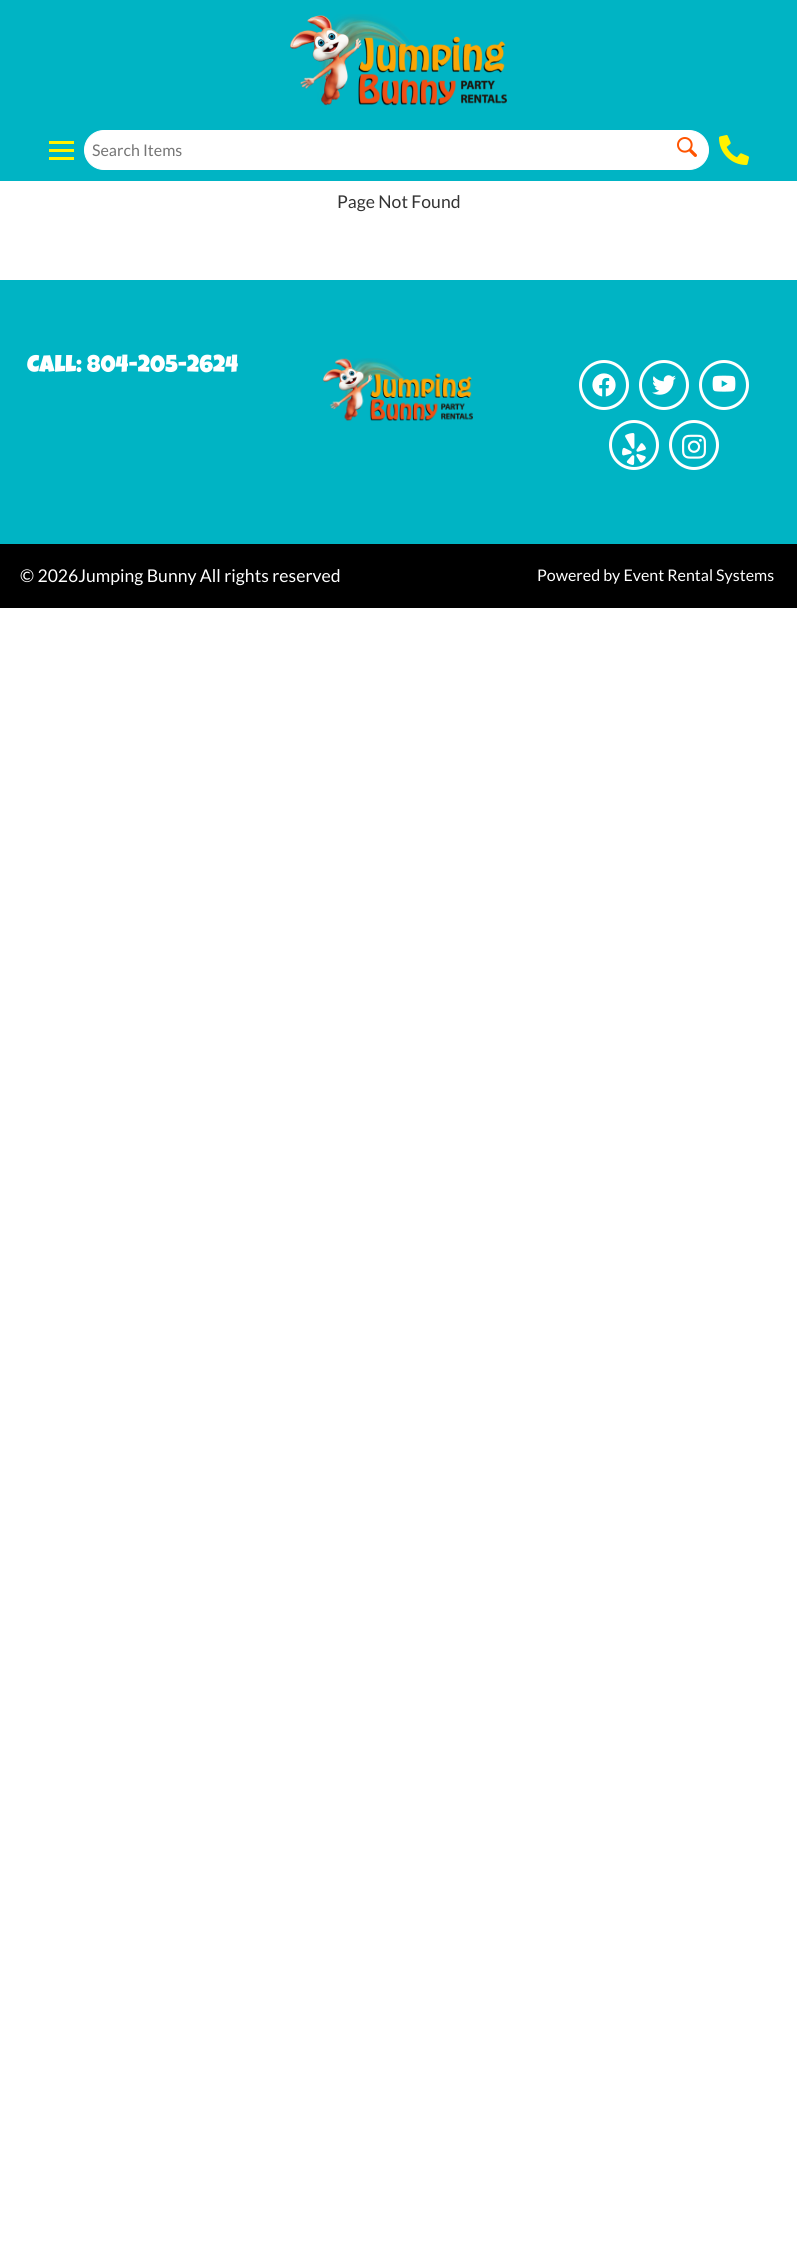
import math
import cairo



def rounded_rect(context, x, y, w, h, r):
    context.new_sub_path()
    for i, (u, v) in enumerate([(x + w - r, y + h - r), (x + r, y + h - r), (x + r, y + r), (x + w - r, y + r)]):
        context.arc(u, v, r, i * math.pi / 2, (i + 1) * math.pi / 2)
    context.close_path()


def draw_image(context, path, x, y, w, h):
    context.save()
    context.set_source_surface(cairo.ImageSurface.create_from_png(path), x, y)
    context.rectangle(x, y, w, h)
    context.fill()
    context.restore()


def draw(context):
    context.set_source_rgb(1, 1, 1)
    context.paint()
    context.set_source_rgb(0, 180 / 255, 196 / 255)
    context.rectangle(0, 0, 797, 181)
    context.fill()
    draw_image(context, "images/1.png", 290, 14, 217, 95)
    context.set_source_rgb(1, 242 / 255, 0)
    context.rectangle(49, 141, 25, 3)
    context.fill()
    context.rectangle(49, 149, 25, 3)
    context.fill()
    context.rectangle(49, 157, 25, 3)
    context.fill()
    context.set_source_rgb(1, 1, 1)
    rounded_rect(context, 84.5, 130.5, 624, 39, 19.5)
    context.fill_preserve()
    context.set_line_width(1)
    context.stroke()
    draw_image(context, "images/2.png", 677, 137, 20, 20)
    draw_image(context, "images/3.png", 719, 135, 30, 30)
    context.set_source_rgb(0, 180 / 255, 196 / 255)
    context.rectangle(0, 280, 797, 264)
    context.fill()
    draw_image(context, "images/4.png", 323, 358, 150, 63)
    context.arc(604, 385, 23.5, 0, 2 * math.pi)
    context.set_source_rgb(1, 1, 1)
    context.set_line_width(3)
    context.stroke()
    draw_image(context, "images/5.png", 592, 373, 24, 24)
    context.arc(664, 385, 23.5, 0, 2 * math.pi)
    context.stroke()
    draw_image(context, "images/6.png", 652, 375, 24, 20)
    context.arc(724, 385, 23.5, 0, 2 * math.pi)
    context.stroke()
    draw_image(context, "images/7.png", 712, 375, 24, 17)
    context.arc(634, 445, 23.5, 0, 2 * math.pi)
    context.stroke()
    draw_image(context, "images/8.png", 622, 433, 24, 32)
    context.arc(694, 445, 23.5, 0, 2 * math.pi)
    context.stroke()
    draw_image(context, "images/9.png", 682, 434, 24, 25)
    context.set_source_rgb(0, 0, 0)
    context.rectangle(0, 544, 797, 64)
    context.fill()
    context.select_font_face("Lato")
    context.set_font_size(16)
    context.set_source_rgb(117 / 255, 117 / 255, 117 / 255)
    context.move_to(92, 156)
    context.show_text("Search Items")
    context.set_font_size(17.6)
    context.set_source_rgb(51 / 255, 51 / 255, 51 / 255)
    context.move_to(337, 208)
    context.show_text("Page Not Found")
    context.select_font_face("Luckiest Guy")
    context.set_font_size(24)
    context.set_source_rgb(1, 1, 1)
    context.move_to(27, 372)
    context.show_text("Call: 804-205-2624")
    context.select_font_face("Lato")
    context.set_font_size(17.6)
    context.move_to(20, 582)
    context.show_text("© 2026Jumping Bunny All rights reserved")
    context.set_font_size(16)
    context.move_to(537, 581)
    context.show_text("Powered by Event Rental Systems")


surface = cairo.ImageSurface(cairo.Format.RGB24, 797, 2259)
context = cairo.Context(surface)
options = cairo.FontOptions()
options.set_hint_metrics(cairo.HintMetrics.OFF)
options.set_hint_style(cairo.HintStyle.NONE)
context.set_font_options(options)
context.set_miter_limit(4)
draw(context)
surface.write_to_png("out.png")
